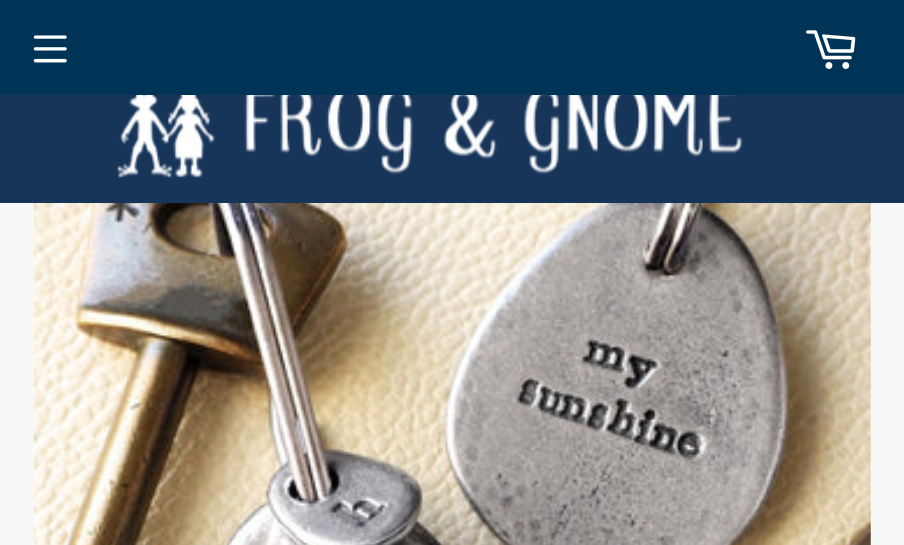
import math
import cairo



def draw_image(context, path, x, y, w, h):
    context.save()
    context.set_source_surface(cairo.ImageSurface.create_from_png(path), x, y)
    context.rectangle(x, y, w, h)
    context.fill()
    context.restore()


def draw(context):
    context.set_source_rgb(247 / 255, 249 / 255, 248 / 255)
    context.paint()
    context.set_source_rgb(0, 52 / 255, 87 / 255)
    context.rectangle(0, 0, 904, 95)
    context.fill()
    draw_image(context, "images/1.png", 33, 35, 34, 28)
    draw_image(context, "images/2.png", 806, 30, 50, 39)
    context.set_source_rgb(23 / 255, 52 / 255, 89 / 255)
    context.rectangle(0, 95, 904, 108)
    context.fill()
    draw_image(context, "images/3.png", 116, 95, 627, 83)
    draw_image(context, "images/4.png", 33, 203, 838, 342)


surface = cairo.ImageSurface(cairo.Format.RGB24, 904, 545)
context = cairo.Context(surface)
options = cairo.FontOptions()
options.set_hint_metrics(cairo.HintMetrics.OFF)
options.set_hint_style(cairo.HintStyle.NONE)
context.set_font_options(options)
context.set_miter_limit(4)
draw(context)
surface.write_to_png("out.png")
